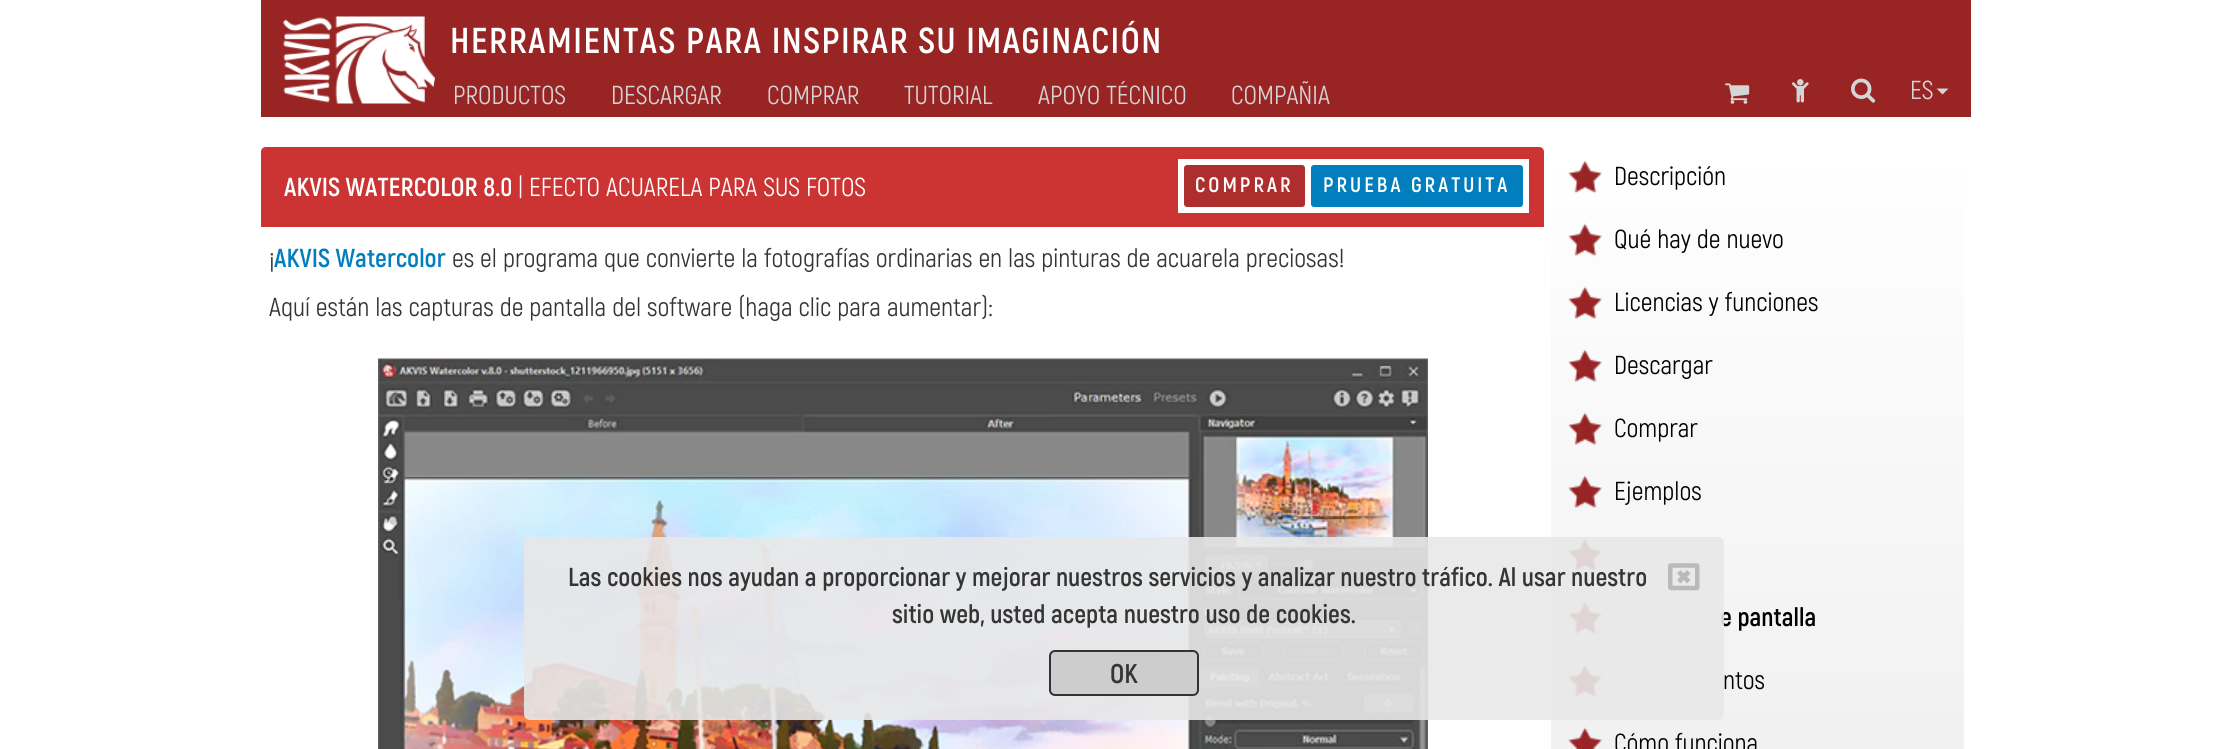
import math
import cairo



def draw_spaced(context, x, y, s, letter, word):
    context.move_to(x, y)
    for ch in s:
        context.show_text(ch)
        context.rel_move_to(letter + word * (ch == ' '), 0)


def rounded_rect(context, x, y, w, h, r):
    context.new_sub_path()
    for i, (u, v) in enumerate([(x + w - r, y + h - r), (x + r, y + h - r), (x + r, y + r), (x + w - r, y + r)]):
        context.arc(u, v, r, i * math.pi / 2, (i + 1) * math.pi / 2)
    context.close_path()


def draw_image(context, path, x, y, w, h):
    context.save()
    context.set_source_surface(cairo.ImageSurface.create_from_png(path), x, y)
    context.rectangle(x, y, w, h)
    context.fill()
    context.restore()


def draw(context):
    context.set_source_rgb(1, 1, 1)
    context.paint()
    context.set_source_rgb(153 / 255, 36 / 255, 36 / 255)
    context.rectangle(261, 0, 1710, 117)
    context.fill()
    draw_image(context, "images/1.png", 283, 16, 152, 88)
    draw_image(context, "images/2.png", 1725, 83, 25, 21)
    draw_image(context, "images/3.png", 1791, 79, 18, 24)
    draw_image(context, "images/4.png", 1851, 78, 25, 25)
    context.set_source_rgb(213 / 255, 213 / 255, 213 / 255)
    context.new_path()
    context.move_to(1936.5, 88.5)
    context.line_to(1948.5, 88.5)
    context.line_to(1942.5, 94.5)
    context.close_path()
    context.fill()
    context.set_source_rgb(204 / 255, 51 / 255, 51 / 255)
    context.new_path()
    context.move_to(266, 147)
    context.line_to(1539, 147)
    context.curve_to(1542, 147, 1544, 149, 1544, 152)
    context.line_to(1544, 227)
    context.line_to(261, 227)
    context.line_to(261, 152)
    context.curve_to(261, 149, 263, 147, 266, 147)
    context.close_path()
    context.fill()
    context.set_source_rgb(1, 1, 1)
    context.rectangle(1178, 159, 351, 54)
    context.fill()
    context.set_source_rgb(174 / 255, 46 / 255, 46 / 255)
    rounded_rect(context, 1184, 165, 121, 42, 3)
    context.fill()
    context.set_source_rgb(0, 126 / 255, 189 / 255)
    rounded_rect(context, 1311, 165, 212, 42, 3)
    context.fill()
    draw_image(context, "images/5.png", 378, 358, 1050, 391)
    context.save()
    rounded_rect(context, 1551, 147, 413, 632, 6)
    context.clip()
    gradient = cairo.LinearGradient(1757, 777, 1757, 147)
    gradient.add_color_stop_rgba(0, 240 / 255, 240 / 255, 240 / 255, 1)
    gradient.add_color_stop_rgba(1, 1, 1, 1, 1)
    context.set_source(gradient)
    context.new_path()
    context.move_to(1557, 147)
    context.line_to(1958, 147)
    context.curve_to(1961.5, 147, 1964, 149.5, 1964, 153)
    context.line_to(1964, 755)
    context.line_to(1551, 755)
    context.line_to(1551, 153)
    context.curve_to(1551, 149.5, 1553.5, 147, 1557, 147)
    context.close_path()
    context.fill()
    context.restore()
    draw_image(context, "images/6.png", 1568, 160, 35, 34)
    draw_image(context, "images/7.png", 1568, 223, 35, 34)
    draw_image(context, "images/8.png", 1568, 286, 35, 34)
    draw_image(context, "images/9.png", 1568, 349, 35, 34)
    draw_image(context, "images/10.png", 1568, 412, 35, 34)
    draw_image(context, "images/11.png", 1568, 475, 35, 34)
    draw_image(context, "images/12.png", 1568, 538, 35, 34)
    draw_image(context, "images/13.png", 1568, 601, 35, 34)
    draw_image(context, "images/14.png", 1568, 664, 35, 34)
    draw_image(context, "images/15.png", 1568, 727, 35, 22)
    context.select_font_face("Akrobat", cairo.FontSlant.NORMAL, cairo.FontWeight.BOLD)
    context.set_font_size(36)
    context.set_source_rgb(1, 1, 1)
    draw_spaced(context, 450, 53, "HERRAMIENTAS PARA INSPIRAR SU IMAGINACIÓN", 1.5, 0)
    context.select_font_face("Akrobat")
    context.set_font_size(26)
    context.set_source_rgb(213 / 255, 213 / 255, 213 / 255)
    context.move_to(453, 104)
    context.show_text("PRODUCTOS")
    context.move_to(611, 104)
    context.show_text("DESCARGAR")
    context.move_to(767, 104)
    context.show_text("COMPRAR")
    context.move_to(904, 104)
    context.show_text("TUTORIAL")
    context.move_to(1038, 104)
    context.show_text("APOYO TÉCNICO")
    context.move_to(1231, 104)
    context.show_text("COMPAÑIA")
    context.move_to(1910, 99)
    context.show_text("ES")
    context.select_font_face("Akrobat", cairo.FontSlant.NORMAL, cairo.FontWeight.BOLD)
    context.set_source_rgb(1, 1, 1)
    context.move_to(284, 196)
    context.show_text("AKVIS WATERCOLOR 8.0")
    context.select_font_face("Akrobat")
    context.move_to(518, 196)
    context.show_text("| EFECTO ACUARELA PARA SUS FOTOS")
    context.select_font_face("Akrobat", cairo.FontSlant.NORMAL, cairo.FontWeight.BOLD)
    context.set_font_size(21)
    draw_spaced(context, 1195, 192, "COMPRAR", 3, 0)
    draw_spaced(context, 1323, 192, "PRUEBA GRATUITA", 3, 0)
    context.select_font_face("Akrobat")
    context.set_font_size(26)
    context.set_source_rgb(53 / 255, 53 / 255, 53 / 255)
    context.move_to(269, 267)
    context.show_text("¡")
    context.select_font_face("Akrobat", cairo.FontSlant.NORMAL, cairo.FontWeight.BOLD)
    context.set_source_rgb(0, 126 / 255, 189 / 255)
    context.move_to(274, 267)
    context.show_text("AKVIS Watercolor")
    context.select_font_face("Akrobat")
    context.set_source_rgb(53 / 255, 53 / 255, 53 / 255)
    context.move_to(452, 267)
    context.show_text("es el programa que convierte la fotografías ordinarias en las pinturas de acuarela preciosas!")
    context.move_to(269, 316)
    context.show_text("Aquí están las capturas de pantalla del software (haga clic para aumentar):")
    context.set_source_rgb(0, 0, 0)
    context.move_to(1614, 185)
    context.show_text("Descripción")
    context.move_to(1614, 248)
    context.show_text("Qué hay de nuevo")
    context.move_to(1614, 311)
    context.show_text("Licencias y funciones")
    context.move_to(1614, 374)
    context.show_text("Descargar")
    context.move_to(1614, 437)
    context.show_text("Comprar")
    context.move_to(1614, 500)
    context.show_text("Ejemplos")
    context.select_font_face("Akrobat", cairo.FontSlant.NORMAL, cairo.FontWeight.BOLD)
    context.move_to(1720, 626)
    context.show_text("e pantalla")
    context.select_font_face("Akrobat")
    context.move_to(1723, 689)
    context.show_text("ntos")
    context.move_to(1614, 752)
    context.show_text("Cómo funciona")
    context.set_source_rgba(232 / 255, 232 / 255, 232 / 255, 0.9)
    rounded_rect(context, 524, 537, 1200, 183, 6)
    context.fill()
    context.select_font_face("Akrobat", cairo.FontSlant.NORMAL, cairo.FontWeight.BOLD)
    context.set_source_rgb(53 / 255, 53 / 255, 53 / 255)
    context.move_to(568, 586)
    context.show_text("Las cookies nos ayudan a proporcionar y mejorar nuestros servicios y analizar nuestro tráfico. Al usar nuestro")
    draw_image(context, "images/16.png", 1668, 563, 32, 28)
    context.move_to(892, 623)
    context.show_text("sitio web, usted acepta nuestro uso de cookies.")
    context.set_source_rgb(205 / 255, 205 / 255, 205 / 255)
    rounded_rect(context, 1050, 651, 148, 44, 5)
    context.fill_preserve()
    context.set_source_rgb(51 / 255, 51 / 255, 51 / 255)
    context.stroke()
    context.set_font_size(27)
    context.set_source_rgb(53 / 255, 53 / 255, 53 / 255)
    context.move_to(1110, 683)
    context.show_text("OK")


surface = cairo.ImageSurface(cairo.Format.RGB24, 2231, 749)
context = cairo.Context(surface)
options = cairo.FontOptions()
options.set_hint_metrics(cairo.HintMetrics.OFF)
options.set_hint_style(cairo.HintStyle.NONE)
context.set_font_options(options)
context.set_miter_limit(4)
draw(context)
surface.write_to_png("out.png")
